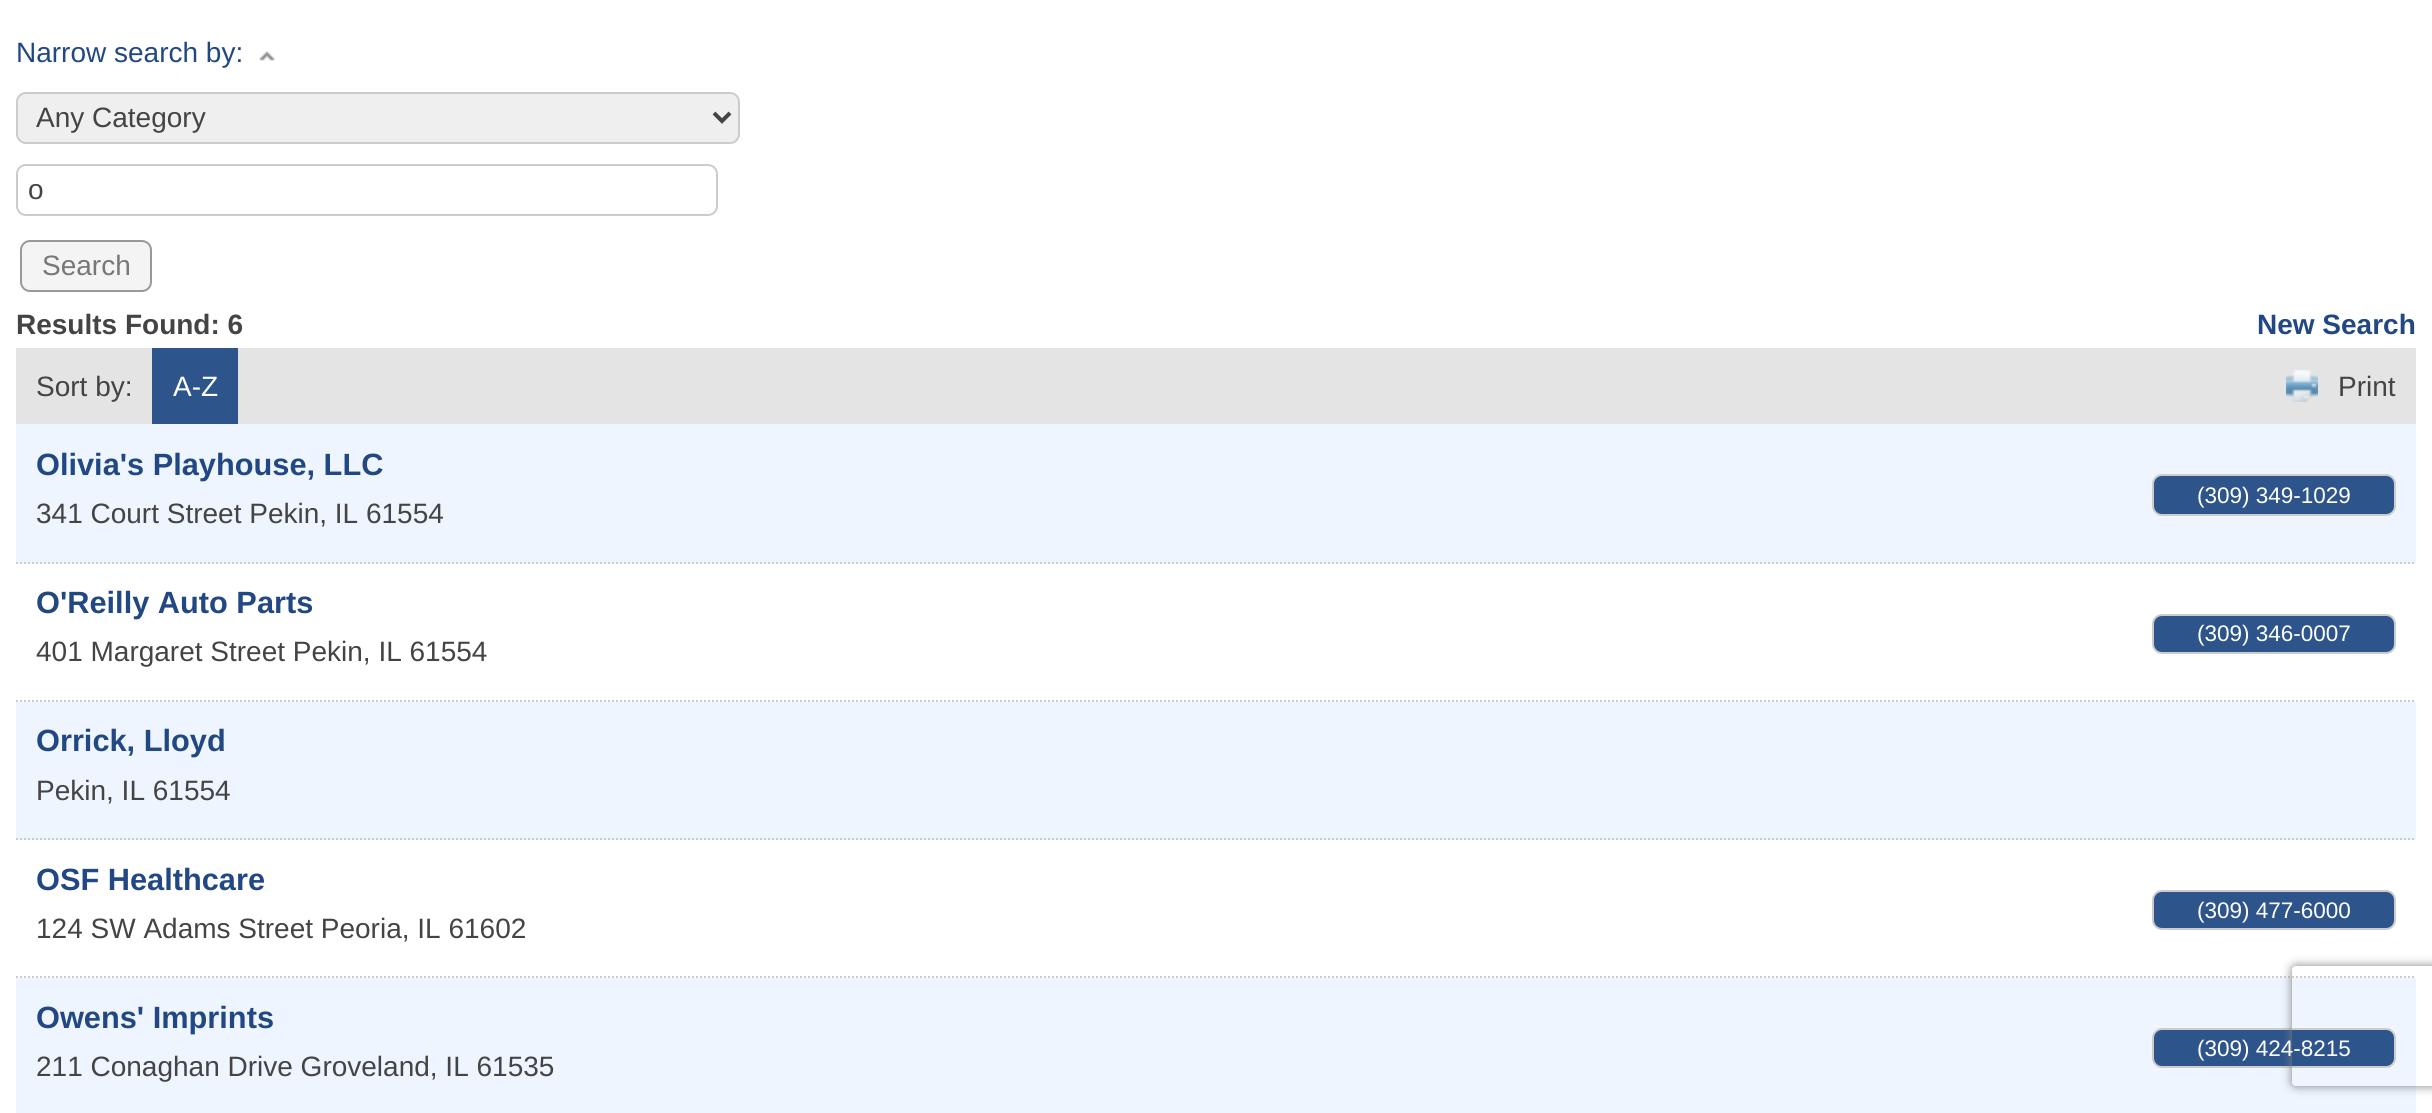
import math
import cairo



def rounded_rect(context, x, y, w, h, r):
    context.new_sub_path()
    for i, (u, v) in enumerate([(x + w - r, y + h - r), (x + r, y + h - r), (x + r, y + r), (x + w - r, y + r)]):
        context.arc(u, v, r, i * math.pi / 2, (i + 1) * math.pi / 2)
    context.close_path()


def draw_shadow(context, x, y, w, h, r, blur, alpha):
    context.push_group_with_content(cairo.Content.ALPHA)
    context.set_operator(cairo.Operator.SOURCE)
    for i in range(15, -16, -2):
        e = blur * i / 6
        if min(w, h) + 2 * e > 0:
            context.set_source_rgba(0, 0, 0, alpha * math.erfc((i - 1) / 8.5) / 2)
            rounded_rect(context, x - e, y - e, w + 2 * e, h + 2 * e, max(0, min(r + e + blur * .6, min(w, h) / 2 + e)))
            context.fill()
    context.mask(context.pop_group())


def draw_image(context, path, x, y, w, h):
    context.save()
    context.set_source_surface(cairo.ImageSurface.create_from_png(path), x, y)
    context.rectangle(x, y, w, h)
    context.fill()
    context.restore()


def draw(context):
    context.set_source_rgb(1, 1, 1)
    context.paint()
    draw_image(context, "images/1.png", 259, 51, 16, 10)
    context.set_source_rgb(239 / 255, 239 / 255, 239 / 255)
    rounded_rect(context, 17, 93, 722, 50, 9)
    context.fill_preserve()
    context.set_source_rgb(204 / 255, 204 / 255, 204 / 255)
    context.stroke()
    context.new_path()
    context.move_to(714, 113)
    context.line_to(722, 121)
    context.line_to(730, 113)
    context.set_source_rgb(68 / 255, 68 / 255, 68 / 255)
    context.set_line_width(4)
    context.stroke()
    rounded_rect(context, 17, 165, 700, 50, 9)
    context.set_source_rgb(204 / 255, 204 / 255, 204 / 255)
    context.set_line_width(2)
    context.stroke()
    context.set_source_rgb(244 / 255, 244 / 255, 244 / 255)
    rounded_rect(context, 21, 241, 130, 50, 9)
    context.fill_preserve()
    context.set_source_rgb(153 / 255, 153 / 255, 153 / 255)
    context.stroke()
    context.set_source_rgb(228 / 255, 228 / 255, 228 / 255)
    context.rectangle(16, 348, 2400, 76)
    context.fill()
    context.set_source_rgb(45 / 255, 84 / 255, 139 / 255)
    context.rectangle(152, 348, 86, 76)
    context.fill()
    draw_image(context, "images/2.png", 2286, 370, 32, 32)
    context.set_source_rgb(238 / 255, 245 / 255, 1)
    context.rectangle(16, 424, 2400, 140)
    context.fill()
    context.new_path()
    context.move_to(16, 563)
    context.line_to(2416, 563)
    context.set_source_rgb(204 / 255, 204 / 255, 204 / 255)
    context.set_dash([2, 2])
    context.stroke()
    context.set_source_rgb(45 / 255, 84 / 255, 139 / 255)
    rounded_rect(context, 2153, 475, 242, 40, 9)
    context.fill_preserve()
    context.set_source_rgb(204 / 255, 204 / 255, 204 / 255)
    context.set_dash([])
    context.stroke()
    context.new_path()
    context.move_to(16, 701)
    context.line_to(2416, 701)
    context.set_dash([2, 2])
    context.stroke()
    context.set_source_rgb(45 / 255, 84 / 255, 139 / 255)
    rounded_rect(context, 2153, 615, 242, 38, 9)
    context.fill_preserve()
    context.set_source_rgb(204 / 255, 204 / 255, 204 / 255)
    context.set_dash([])
    context.stroke()
    context.set_source_rgb(238 / 255, 245 / 255, 1)
    context.rectangle(16, 702, 2400, 138)
    context.fill()
    context.new_path()
    context.move_to(16, 839)
    context.line_to(2416, 839)
    context.set_source_rgb(204 / 255, 204 / 255, 204 / 255)
    context.set_dash([2, 2])
    context.stroke()
    context.new_path()
    context.move_to(16, 977)
    context.line_to(2416, 977)
    context.stroke()
    context.set_source_rgb(45 / 255, 84 / 255, 139 / 255)
    rounded_rect(context, 2153, 891, 242, 38, 9)
    context.fill_preserve()
    context.set_source_rgb(204 / 255, 204 / 255, 204 / 255)
    context.set_dash([])
    context.stroke()
    context.set_source_rgb(238 / 255, 245 / 255, 1)
    context.rectangle(16, 978, 2400, 135)
    context.fill()
    context.set_source_rgb(45 / 255, 84 / 255, 139 / 255)
    rounded_rect(context, 2153, 1029, 242, 38, 9)
    context.fill_preserve()
    context.set_source_rgb(204 / 255, 204 / 255, 204 / 255)
    context.stroke()
    context.save()
    context.set_fill_rule(cairo.FillRule.EVEN_ODD)
    context.new_path()
    context.move_to(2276, 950)
    context.line_to(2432, 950)
    context.line_to(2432, 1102)
    context.line_to(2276, 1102)
    context.close_path()
    context.move_to(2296, 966)
    context.line_to(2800, 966)
    context.curve_to(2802, 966, 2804, 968, 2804, 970)
    context.line_to(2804, 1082)
    context.curve_to(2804, 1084, 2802, 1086, 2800, 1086)
    context.line_to(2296, 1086)
    context.curve_to(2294, 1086, 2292, 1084, 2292, 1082)
    context.line_to(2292, 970)
    context.curve_to(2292, 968, 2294, 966, 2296, 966)
    context.close_path()
    context.clip()
    context.set_source_rgb(128 / 255, 128 / 255, 128 / 255)
    draw_shadow(context, 2292, 966, 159, 120, 4, 5, 1)
    context.restore()
    context.select_font_face("Liberation Sans")
    context.set_font_size(28)
    context.set_source_rgb(34 / 255, 72 / 255, 132 / 255)
    context.move_to(16, 62)
    context.show_text("Narrow search by:")
    context.set_source_rgb(68 / 255, 68 / 255, 68 / 255)
    context.move_to(36, 127)
    context.show_text("Any Category")
    context.move_to(28, 199)
    context.show_text("o")
    context.set_source_rgb(119 / 255, 119 / 255, 119 / 255)
    context.move_to(42, 275)
    context.show_text("Search")
    context.select_font_face("Liberation Sans", cairo.FontSlant.NORMAL, cairo.FontWeight.BOLD)
    context.set_source_rgb(68 / 255, 68 / 255, 68 / 255)
    context.move_to(16, 334)
    context.show_text("Results Found: 6")
    context.set_source_rgb(34 / 255, 72 / 255, 132 / 255)
    context.move_to(2257, 334)
    context.show_text("New Search")
    context.select_font_face("Liberation Sans")
    context.set_source_rgb(68 / 255, 68 / 255, 68 / 255)
    context.move_to(36, 396)
    context.show_text("Sort by:")
    context.set_source_rgb(1, 1, 1)
    context.move_to(173, 396)
    context.show_text("A-Z")
    context.set_source_rgb(68 / 255, 68 / 255, 68 / 255)
    context.move_to(2338, 396)
    context.show_text("Print")
    context.select_font_face("Liberation Sans", cairo.FontSlant.NORMAL, cairo.FontWeight.BOLD)
    context.set_font_size(30.75)
    context.set_source_rgb(34 / 255, 72 / 255, 132 / 255)
    context.move_to(36, 475)
    context.show_text("Olivia's Playhouse, LLC")
    context.select_font_face("Liberation Sans")
    context.set_font_size(28)
    context.set_source_rgb(68 / 255, 68 / 255, 68 / 255)
    context.move_to(36, 523)
    context.show_text("341 Court Street Pekin, IL 61554")
    context.set_font_size(22.5)
    context.set_source_rgb(1, 1, 1)
    context.move_to(2197, 503)
    context.show_text("(309) 349-1029")
    context.select_font_face("Liberation Sans", cairo.FontSlant.NORMAL, cairo.FontWeight.BOLD)
    context.set_font_size(30.75)
    context.set_source_rgb(34 / 255, 72 / 255, 132 / 255)
    context.move_to(36, 613)
    context.show_text("O'Reilly Auto Parts")
    context.select_font_face("Liberation Sans")
    context.set_font_size(28)
    context.set_source_rgb(68 / 255, 68 / 255, 68 / 255)
    context.move_to(36, 661)
    context.show_text("401 Margaret Street Pekin, IL 61554")
    context.set_font_size(22.5)
    context.set_source_rgb(1, 1, 1)
    context.move_to(2197, 641)
    context.show_text("(309) 346-0007")
    context.select_font_face("Liberation Sans", cairo.FontSlant.NORMAL, cairo.FontWeight.BOLD)
    context.set_font_size(30.75)
    context.set_source_rgb(34 / 255, 72 / 255, 132 / 255)
    context.move_to(36, 751)
    context.show_text("Orrick, Lloyd")
    context.select_font_face("Liberation Sans")
    context.set_font_size(28)
    context.set_source_rgb(68 / 255, 68 / 255, 68 / 255)
    context.move_to(36, 800)
    context.show_text("Pekin, IL 61554")
    context.select_font_face("Liberation Sans", cairo.FontSlant.NORMAL, cairo.FontWeight.BOLD)
    context.set_font_size(30.75)
    context.set_source_rgb(34 / 255, 72 / 255, 132 / 255)
    context.move_to(36, 890)
    context.show_text("OSF Healthcare")
    context.select_font_face("Liberation Sans")
    context.set_font_size(28)
    context.set_source_rgb(68 / 255, 68 / 255, 68 / 255)
    context.move_to(36, 938)
    context.show_text("124 SW Adams Street Peoria, IL 61602")
    context.set_font_size(22.5)
    context.set_source_rgb(1, 1, 1)
    context.move_to(2197, 918)
    context.show_text("(309) 477-6000")
    context.select_font_face("Liberation Sans", cairo.FontSlant.NORMAL, cairo.FontWeight.BOLD)
    context.set_font_size(30.75)
    context.set_source_rgb(34 / 255, 72 / 255, 132 / 255)
    context.move_to(36, 1028)
    context.show_text("Owens' Imprints")
    context.select_font_face("Liberation Sans")
    context.set_font_size(28)
    context.set_source_rgb(68 / 255, 68 / 255, 68 / 255)
    context.move_to(36, 1076)
    context.show_text("211 Conaghan Drive Groveland, IL 61535")
    context.set_font_size(22.5)
    context.set_source_rgb(1, 1, 1)
    context.move_to(2197, 1056)
    context.show_text("(309) 424-8215")


surface = cairo.ImageSurface(cairo.Format.RGB24, 2432, 1113)
context = cairo.Context(surface)
options = cairo.FontOptions()
options.set_hint_metrics(cairo.HintMetrics.OFF)
options.set_hint_style(cairo.HintStyle.NONE)
context.set_font_options(options)
context.set_miter_limit(4)
draw(context)
surface.write_to_png("out.png")
